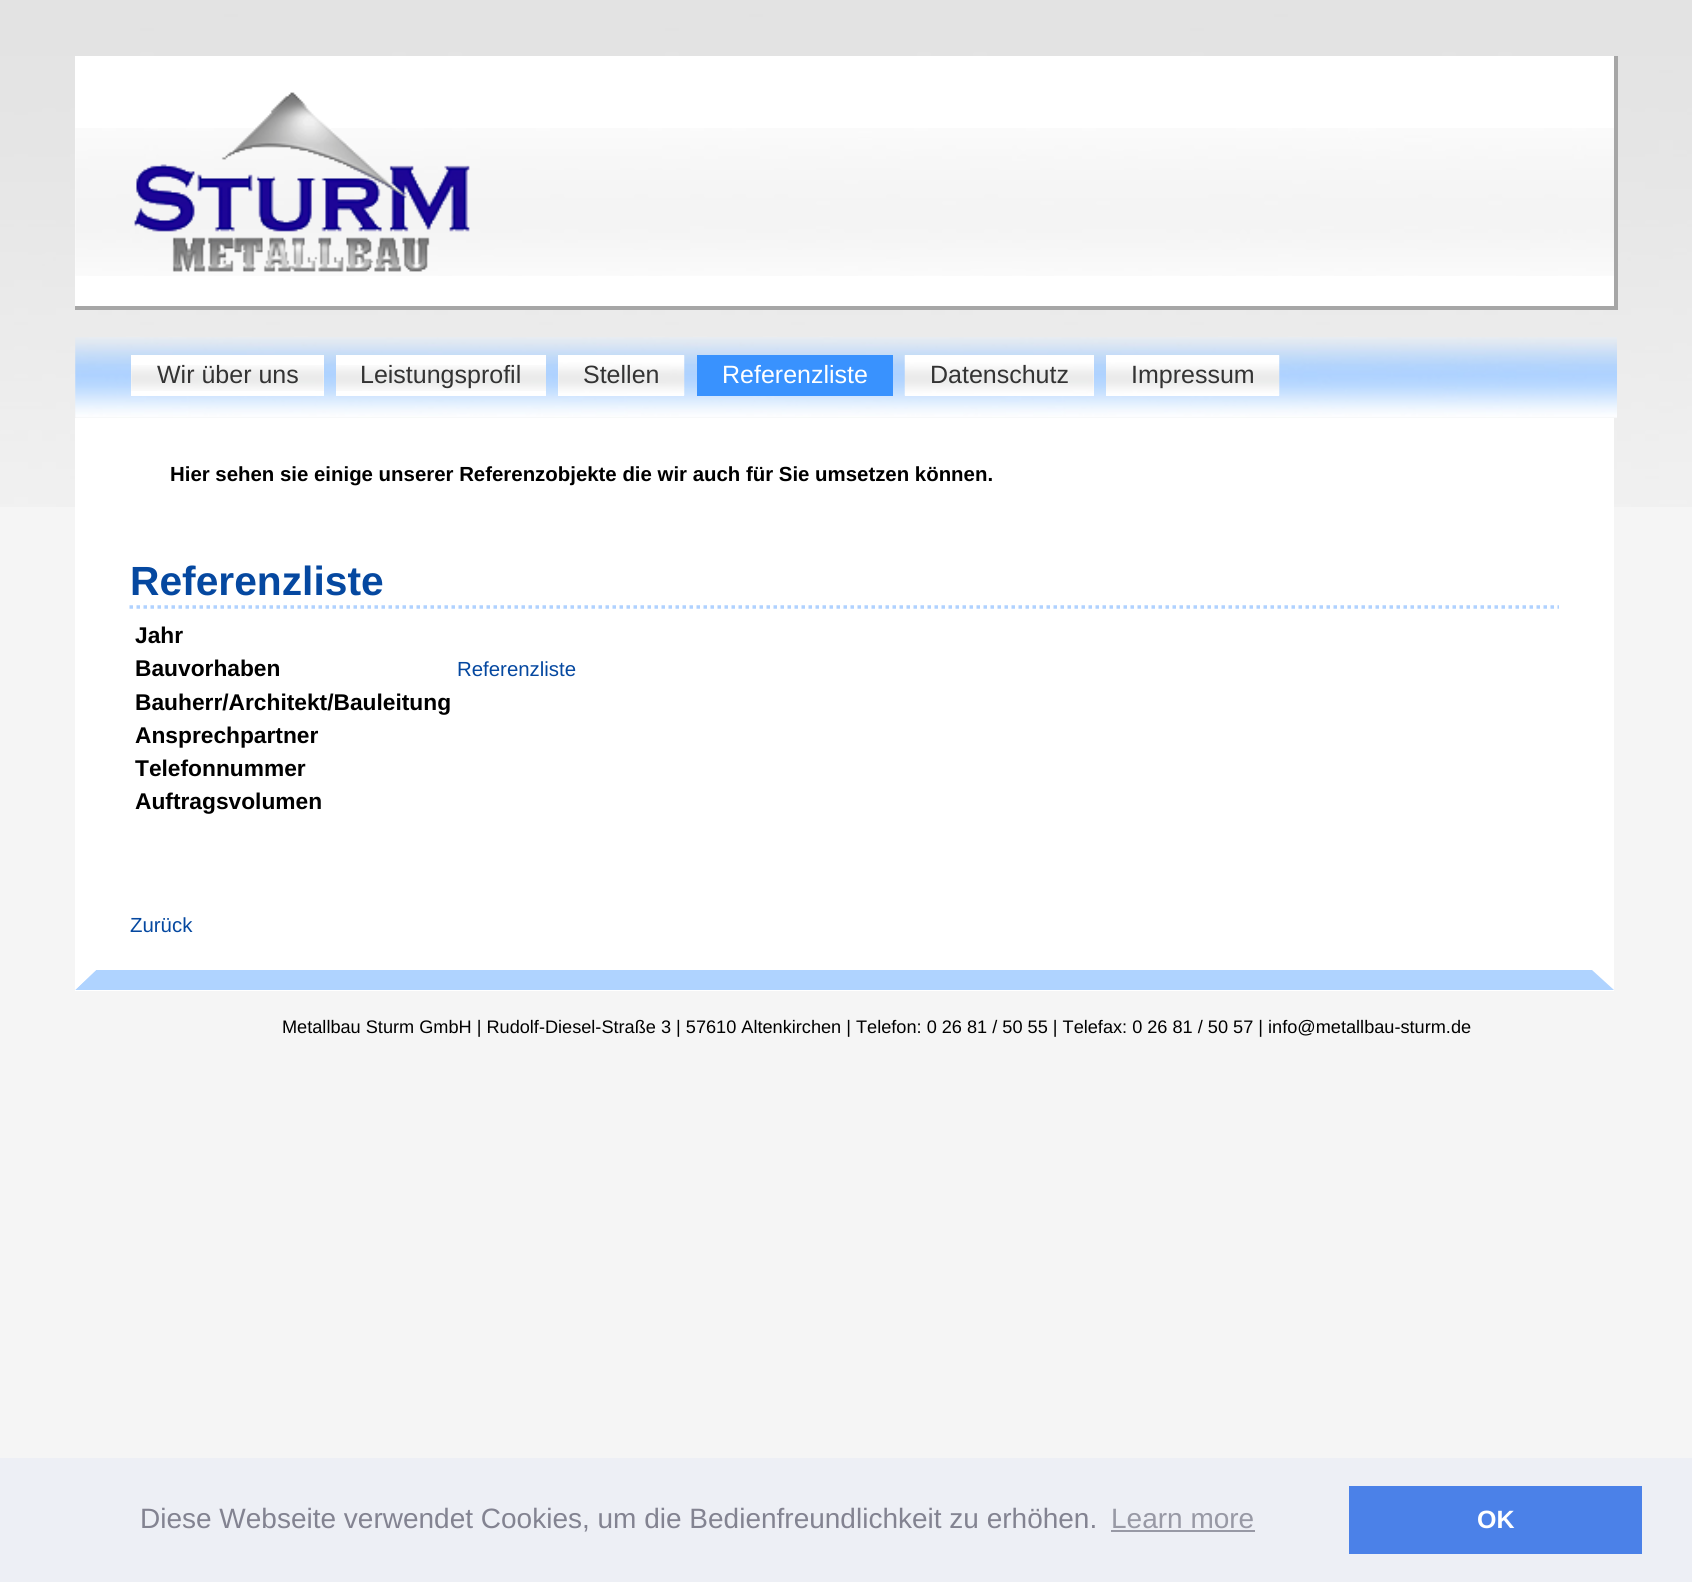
import math
import cairo



def draw_image(context, path, x, y, w, h):
    context.save()
    context.set_source_surface(cairo.ImageSurface.create_from_png(path), x, y)
    context.rectangle(x, y, w, h)
    context.fill()
    context.restore()


def draw(context):
    context.set_source_rgb(245 / 255, 245 / 255, 245 / 255)
    context.paint()
    draw_image(context, "images/1.png", 0, 0, 1692, 507)
    context.set_source_rgb(1, 1, 1)
    context.rectangle(75, 56, 1539, 250)
    context.fill()
    draw_image(context, "images/2.png", 75, 128, 1539, 148)
    context.set_source_rgb(166 / 255, 166 / 255, 166 / 255)
    context.rectangle(1614, 56, 4, 254)
    context.fill()
    context.rectangle(75, 306, 1542, 4)
    context.fill()
    draw_image(context, "images/3.png", 134, 92, 336, 180)
    draw_image(context, "images/4.png", 75, 337, 1542, 81)
    context.set_source_rgb(1, 1, 1)
    context.rectangle(131, 355, 193, 41)
    context.fill()
    draw_image(context, "images/5.png", 131, 365, 193, 26)
    context.rectangle(336, 355, 210, 41)
    context.fill()
    draw_image(context, "images/6.png", 336, 365, 210, 26)
    context.rectangle(558, 355, 126, 41)
    context.fill()
    draw_image(context, "images/7.png", 558, 355, 127, 41)
    context.set_source_rgb(57 / 255, 146 / 255, 254 / 255)
    context.rectangle(697, 355, 196, 41)
    context.fill()
    context.set_source_rgb(1, 1, 1)
    context.rectangle(905, 355, 189, 41)
    context.fill()
    draw_image(context, "images/8.png", 904, 355, 190, 41)
    context.rectangle(1106, 355, 173, 41)
    context.fill()
    draw_image(context, "images/9.png", 1106, 355, 174, 41)
    context.rectangle(75, 418, 1539, 573)
    context.fill()
    context.set_source_rgb(175 / 255, 211 / 255, 1)
    context.new_path()
    context.move_to(1614, 990)
    context.line_to(75, 990)
    context.line_to(96, 970)
    context.line_to(1592, 970)
    context.close_path()
    context.fill()
    context.set_source_rgb(1, 1, 1)
    context.new_path()
    context.move_to(75, 990)
    context.line_to(75, 418)
    context.line_to(96, 439)
    context.line_to(96, 970)
    context.close_path()
    context.fill()
    context.new_path()
    context.move_to(129.5, 607)
    context.line_to(1559, 607)
    context.set_source_rgb(176 / 255, 210 / 255, 1)
    context.set_line_width(3.5)
    context.set_dash([3.5, 3.5])
    context.stroke()
    context.set_source_rgb(237 / 255, 239 / 255, 245 / 255)
    context.rectangle(0, 1458, 1692, 124)
    context.fill()
    context.set_source_rgb(152 / 255, 153 / 255, 165 / 255)
    context.rectangle(1111, 1530, 144, 2)
    context.fill()
    context.set_source_rgb(75 / 255, 129 / 255, 232 / 255)
    context.rectangle(1349, 1486, 293, 68)
    context.fill()
    context.select_font_face("Liberation Sans")
    context.set_font_size(25)
    context.set_source_rgb(51 / 255, 51 / 255, 51 / 255)
    context.move_to(157, 383)
    context.show_text("Wir über uns")
    context.move_to(360, 383)
    context.show_text("Leistungsprofil")
    context.move_to(583, 383)
    context.show_text("Stellen")
    context.set_source_rgb(1, 1, 1)
    context.move_to(722, 383)
    context.show_text("Referenzliste")
    context.set_source_rgb(51 / 255, 51 / 255, 51 / 255)
    context.move_to(930, 383)
    context.show_text("Datenschutz")
    context.move_to(1131, 383)
    context.show_text("Impressum")
    context.select_font_face("Liberation Sans", cairo.FontSlant.NORMAL, cairo.FontWeight.BOLD)
    context.set_font_size(20.4)
    context.set_source_rgb(0, 0, 0)
    context.move_to(170, 481)
    context.show_text("Hier sehen sie einige unserer Referenzobjekte die wir auch für Sie umsetzen können.")
    context.set_font_size(40.75)
    context.set_source_rgb(5 / 255, 72 / 255, 160 / 255)
    context.move_to(130, 595)
    context.show_text("Referenzliste")
    context.set_font_size(22.75)
    context.set_source_rgb(0, 0, 0)
    context.move_to(135, 643)
    context.show_text("Jahr")
    context.move_to(135, 676)
    context.show_text("Bauvorhaben")
    context.select_font_face("Liberation Sans")
    context.set_font_size(20.4)
    context.set_source_rgb(5 / 255, 72 / 255, 160 / 255)
    context.move_to(457, 676)
    context.show_text("Referenzliste")
    context.select_font_face("Liberation Sans", cairo.FontSlant.NORMAL, cairo.FontWeight.BOLD)
    context.set_font_size(22.75)
    context.set_source_rgb(0, 0, 0)
    context.move_to(135, 710)
    context.show_text("Bauherr/Architekt/Bauleitung")
    context.move_to(135, 743)
    context.show_text("Ansprechpartner")
    context.move_to(135, 776)
    context.show_text("Telefonnummer")
    context.move_to(135, 809)
    context.show_text("Auftragsvolumen")
    context.select_font_face("Liberation Sans")
    context.set_font_size(20.4)
    context.set_source_rgb(5 / 255, 72 / 255, 160 / 255)
    context.move_to(130, 932)
    context.show_text("Zurück")
    context.set_font_size(18.15)
    context.set_source_rgb(0, 0, 0)
    context.move_to(282, 1033)
    context.show_text("Metallbau Sturm GmbH | Rudolf-Diesel-Straße 3 | 57610 Altenkirchen | Telefon: 0 26 81 / 50 55 | Telefax: 0 26 81 / 50 57 | info@metallbau-sturm.de")
    context.set_font_size(28)
    context.set_source_rgb(131 / 255, 131 / 255, 145 / 255)
    context.move_to(140, 1528)
    context.show_text("Diese Webseite verwendet Cookies, um die Bedienfreundlichkeit zu erhöhen.")
    context.set_source_rgb(152 / 255, 153 / 255, 165 / 255)
    context.move_to(1111, 1528)
    context.show_text("Learn more")
    context.select_font_face("Liberation Sans", cairo.FontSlant.NORMAL, cairo.FontWeight.BOLD)
    context.set_font_size(25)
    context.set_source_rgb(1, 1, 1)
    context.move_to(1477, 1528)
    context.show_text("OK")


surface = cairo.ImageSurface(cairo.Format.RGB24, 1692, 1582)
context = cairo.Context(surface)
options = cairo.FontOptions()
options.set_hint_metrics(cairo.HintMetrics.OFF)
options.set_hint_style(cairo.HintStyle.NONE)
context.set_font_options(options)
context.set_miter_limit(4)
draw(context)
surface.write_to_png("out.png")
